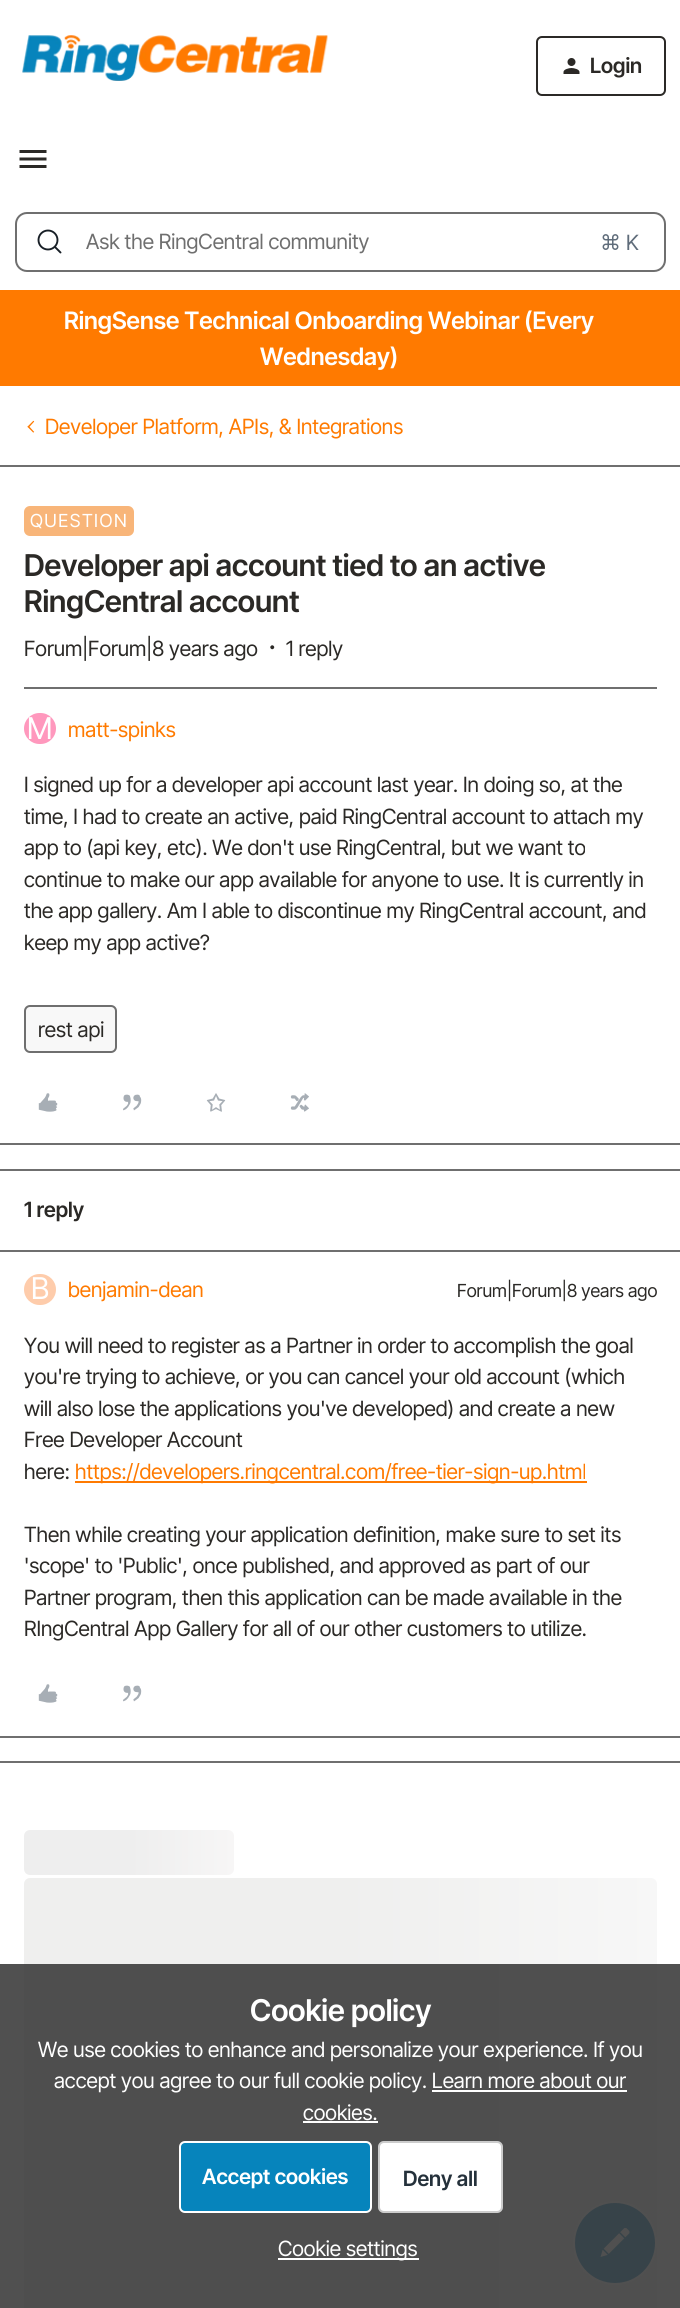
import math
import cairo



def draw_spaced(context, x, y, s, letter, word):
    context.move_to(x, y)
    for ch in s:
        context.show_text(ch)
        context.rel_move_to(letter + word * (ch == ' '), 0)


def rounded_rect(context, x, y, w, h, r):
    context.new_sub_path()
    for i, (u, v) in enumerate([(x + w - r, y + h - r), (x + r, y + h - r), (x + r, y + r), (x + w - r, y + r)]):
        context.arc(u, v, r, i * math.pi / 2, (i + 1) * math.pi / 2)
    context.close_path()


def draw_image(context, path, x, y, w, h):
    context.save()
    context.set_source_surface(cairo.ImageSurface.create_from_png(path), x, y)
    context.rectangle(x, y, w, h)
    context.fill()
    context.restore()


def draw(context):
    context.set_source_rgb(1, 1, 1)
    context.paint()
    context.set_source_rgb(80 / 255, 80 / 255, 80 / 255)
    context.rectangle(0, 1964, 680, 344)
    context.fill()
    draw_image(context, "images/1.png", 22, 35, 306, 46)
    rounded_rect(context, 537, 37, 128, 58, 5)
    context.set_source_rgb(43 / 255, 41 / 255, 38 / 255)
    context.stroke()
    draw_image(context, "images/2.png", 563, 58, 17, 16)
    draw_image(context, "images/3.png", 19, 150, 28, 18)
    rounded_rect(context, 16, 213, 649, 58, 11)
    context.set_source_rgb(111 / 255, 111 / 255, 111 / 255)
    context.stroke()
    context.arc(48, 240, 9.5, 0, 2 * math.pi)
    context.set_source_rgb(24 / 255, 31 / 255, 38 / 255)
    context.set_line_width(1.9)
    context.stroke()
    context.new_path()
    context.move_to(55, 247)
    context.line_to(60.5, 252.5)
    context.set_line_cap(cairo.LineCap.ROUND)
    context.stroke()
    context.set_source_rgb(1, 122 / 255, 0)
    context.rectangle(0, 290, 680, 96)
    context.fill()
    draw_image(context, "images/4.png", 27, 420, 8, 13)
    context.set_source_rgb(111 / 255, 111 / 255, 111 / 255)
    context.rectangle(0, 465, 680, 2)
    context.fill()
    context.rectangle(0, 1143, 680, 2)
    context.fill()
    context.set_source_rgb(248 / 255, 181 / 255, 121 / 255)
    rounded_rect(context, 24, 506, 110, 30, 6)
    context.fill()
    draw_image(context, "images/5.png", 270, 645, 5, 5)
    context.set_source_rgb(111 / 255, 111 / 255, 111 / 255)
    context.rectangle(24, 687, 633, 2)
    context.fill()
    context.set_source_rgb(1, 152 / 255, 189 / 255)
    rounded_rect(context, 24, 713, 32, 31, 15.5)
    context.fill()
    context.set_source_rgb(248 / 255, 248 / 255, 248 / 255)
    rounded_rect(context, 25, 1006, 91, 46, 5)
    context.fill_preserve()
    context.set_source_rgb(111 / 255, 111 / 255, 111 / 255)
    context.set_line_width(2)
    context.set_line_cap(cairo.LineCap.BUTT)
    context.stroke()
    draw_image(context, "images/6.png", 38, 1093, 20, 19)
    draw_image(context, "images/7.png", 123, 1094, 19, 17)
    draw_image(context, "images/8.png", 206, 1093, 20, 19)
    draw_image(context, "images/9.png", 290, 1093, 19, 19)
    context.rectangle(0, 1169, 680, 2)
    context.fill()
    context.rectangle(0, 1736, 680, 2)
    context.fill()
    context.rectangle(0, 1250, 680, 2)
    context.fill()
    context.set_source_rgb(254 / 255, 204 / 255, 171 / 255)
    rounded_rect(context, 24, 1274, 32, 31, 15.5)
    context.fill()
    context.set_source_rgb(1, 122 / 255, 0)
    context.rectangle(75, 1481, 512, 2)
    context.fill()
    draw_image(context, "images/6.png", 38, 1684, 20, 19)
    draw_image(context, "images/7.png", 123, 1685, 19, 17)
    context.set_source_rgb(111 / 255, 111 / 255, 111 / 255)
    context.rectangle(0, 1761, 680, 2)
    context.fill()
    gradient = cairo.LinearGradient(24, 1853, 444, 1853)
    gradient.add_color_stop_rgba(0.25, 238 / 255, 238 / 255, 238 / 255, 1)
    gradient.add_color_stop_rgba(0.5, 247 / 255, 246 / 255, 246 / 255, 1)
    gradient.add_color_stop_rgba(0.75, 238 / 255, 238 / 255, 238 / 255, 1)
    context.set_source(gradient)
    rounded_rect(context, 24, 1830, 210, 45, 6)
    context.fill()
    gradient = cairo.LinearGradient(24, 2103, 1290, 2103)
    gradient.add_color_stop_rgba(0.25, 239 / 255, 239 / 255, 238 / 255, 1)
    gradient.add_color_stop_rgba(0.5, 247 / 255, 247 / 255, 247 / 255, 1)
    gradient.add_color_stop_rgba(0.75, 239 / 255, 239 / 255, 238 / 255, 1)
    context.set_source(gradient)
    rounded_rect(context, 24, 1878, 633, 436, 6)
    context.fill()
    gradient = cairo.LinearGradient(24, 2103, 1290, 2103)
    gradient.add_color_stop_rgba(0.25, 78 / 255, 78 / 255, 78 / 255, 1)
    gradient.add_color_stop_rgba(0.5, 79 / 255, 79 / 255, 79 / 255, 1)
    gradient.add_color_stop_rgba(0.75, 78 / 255, 78 / 255, 78 / 255, 1)
    context.set_source(gradient)
    context.rectangle(24, 1964, 633, 344)
    context.fill()
    context.set_source_rgb(1, 1, 1)
    context.rectangle(432, 2090, 195, 2)
    context.fill()
    context.rectangle(303, 2121, 75, 2)
    context.fill()
    context.set_source_rgb(6 / 255, 132 / 255, 188 / 255)
    rounded_rect(context, 180, 2142, 191, 70, 5)
    context.fill_preserve()
    context.set_source_rgb(1, 1, 1)
    context.stroke()
    rounded_rect(context, 378, 2141, 125, 72, 6)
    context.fill()
    rounded_rect(context, 379, 2142, 123, 70, 5)
    context.set_source_rgba(0, 0, 0, 0.2)
    context.stroke()
    context.set_source_rgb(1, 1, 1)
    context.rectangle(278, 2258, 141, 2)
    context.fill()
    context.set_source_rgb(55 / 255, 67 / 255, 73 / 255)
    context.arc(615, 2243, 41, 0, 2 * math.pi)
    context.fill_preserve()
    context.set_source_rgb(80 / 255, 80 / 255, 80 / 255)
    context.stroke()
    draw_image(context, "images/10.png", 600, 2228, 30, 29)
    context.select_font_face("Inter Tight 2 SemiBold")
    context.set_font_size(21)
    context.set_source_rgb(43 / 255, 41 / 255, 38 / 255)
    context.move_to(590, 73)
    context.show_text("Login")
    context.select_font_face("Inter Tight")
    context.set_source_rgb(111 / 255, 111 / 255, 111 / 255)
    context.move_to(86, 249)
    context.show_text("Ask the RingCentral community")
    context.select_font_face("DejaVu Sans")
    context.set_source_rgb(95 / 255, 108 / 255, 122 / 255)
    context.move_to(600, 250)
    context.show_text("⌘")
    context.select_font_face("Inter Tight")
    context.move_to(626, 250)
    context.show_text("K")
    context.select_font_face("Inter Tight SemiBold")
    context.set_font_size(24)
    context.set_source_rgb(1, 1, 1)
    context.move_to(64, 329)
    context.show_text("RingSense Technical Onboarding Webinar (Every")
    context.move_to(260, 365)
    context.show_text("Wednesday)")
    context.select_font_face("Inter Tight")
    context.set_font_size(21)
    context.set_source_rgb(1, 122 / 255, 0)
    context.move_to(45, 434)
    context.show_text("Developer Platform, APIs, & Integrations")
    context.set_font_size(18)
    context.set_source_rgb(1, 1, 1)
    draw_spaced(context, 30, 527, "QUESTION", 1.5, 0)
    context.select_font_face("Inter Tight SemiBold")
    context.set_font_size(30)
    context.set_source_rgb(43 / 255, 41 / 255, 38 / 255)
    context.move_to(24, 576)
    context.show_text("Developer api account tied to an active")
    context.move_to(24, 612)
    context.show_text("RingCentral account")
    context.select_font_face("Inter Tight")
    context.set_font_size(21)
    context.move_to(24, 656)
    context.show_text("Forum|Forum|8 years ago")
    context.move_to(286, 656)
    context.show_text("1 reply")
    context.set_font_size(30)
    context.set_source_rgb(1, 1, 1)
    context.move_to(27, 739)
    context.show_text("M")
    context.set_font_size(21)
    context.set_source_rgb(1, 122 / 255, 0)
    context.move_to(68, 737)
    context.show_text("matt-spinks")
    context.set_source_rgb(43 / 255, 41 / 255, 38 / 255)
    context.move_to(24, 792)
    context.show_text("I signed up for a developer api account last year. In doing so, at the")
    context.move_to(24, 824)
    context.show_text("time, I had to create an active, paid RingCentral account to attach my")
    context.move_to(24, 855)
    context.show_text("app to (api key, etc). We don't use RingCentral, but we want to")
    context.move_to(24, 887)
    context.show_text("continue to make our app available for anyone to use. It is currently in")
    context.move_to(24, 918)
    context.show_text("the app gallery. Am I able to discontinue my RingCentral account, and")
    context.move_to(24, 950)
    context.show_text("keep my app active?")
    context.move_to(38, 1037)
    context.show_text("rest api")
    context.select_font_face("Inter Tight SemiBold")
    context.move_to(24, 1217)
    context.show_text("1 reply")
    context.select_font_face("Inter Tight")
    context.set_font_size(30)
    context.set_source_rgb(1, 1, 1)
    context.move_to(31, 1299)
    context.show_text("B")
    context.set_font_size(21)
    context.set_source_rgb(1, 122 / 255, 0)
    context.move_to(68, 1297)
    context.show_text("benjamin-dean")
    context.set_font_size(18)
    context.set_source_rgb(43 / 255, 41 / 255, 38 / 255)
    context.move_to(457, 1297)
    context.show_text("Forum|Forum|8 years ago")
    context.set_font_size(21)
    context.move_to(24, 1353)
    context.show_text("You will need to register as a Partner in order to accomplish the goal")
    context.move_to(24, 1384)
    context.show_text("you're trying to achieve, or you can cancel your old account (which")
    context.move_to(24, 1416)
    context.show_text("will also lose the applications you've developed) and create a new")
    context.move_to(24, 1447)
    context.show_text("Free Developer Account")
    context.move_to(24, 1479)
    context.show_text("here:")
    context.set_source_rgb(1, 122 / 255, 0)
    context.move_to(75, 1479)
    context.show_text("https://developers.ringcentral.com/free-tier-sign-up.html")
    context.set_source_rgb(43 / 255, 41 / 255, 38 / 255)
    context.move_to(24, 1542)
    context.show_text("Then while creating your application definition, make sure to set its")
    context.move_to(24, 1573)
    context.show_text("'scope' to 'Public', once published, and approved as part of our")
    context.move_to(24, 1605)
    context.show_text("Partner program, then this application can be made available in the")
    context.move_to(24, 1636)
    context.show_text("RIngCentral App Gallery for all of our other customers to utilize.")
    context.select_font_face("Inter Tight SemiBold")
    context.set_font_size(30)
    context.set_source_rgb(1, 1, 1)
    context.move_to(250, 2021)
    context.show_text("Cookie policy")
    context.select_font_face("Inter Tight")
    context.set_font_size(21)
    context.move_to(38, 2057)
    context.show_text("We use cookies to enhance and personalize your experience. If you")
    context.move_to(54, 2088)
    context.show_text("accept you agree to our full cookie policy. Learn more about our")
    context.move_to(303, 2120)
    context.show_text("cookies.")
    context.select_font_face("Inter Tight 2 SemiBold")
    context.move_to(202, 2184)
    context.show_text("Accept cookies")
    context.set_source_rgb(37 / 255, 49 / 255, 59 / 255)
    context.move_to(403, 2186)
    context.show_text("Deny all")
    context.select_font_face("Inter Tight")
    context.set_source_rgb(1, 1, 1)
    context.move_to(278, 2256)
    context.show_text("Cookie settings")


surface = cairo.ImageSurface(cairo.Format.RGB24, 680, 2308)
context = cairo.Context(surface)
options = cairo.FontOptions()
options.set_hint_metrics(cairo.HintMetrics.OFF)
options.set_hint_style(cairo.HintStyle.NONE)
context.set_font_options(options)
context.set_miter_limit(4)
draw(context)
surface.write_to_png("out.png")
